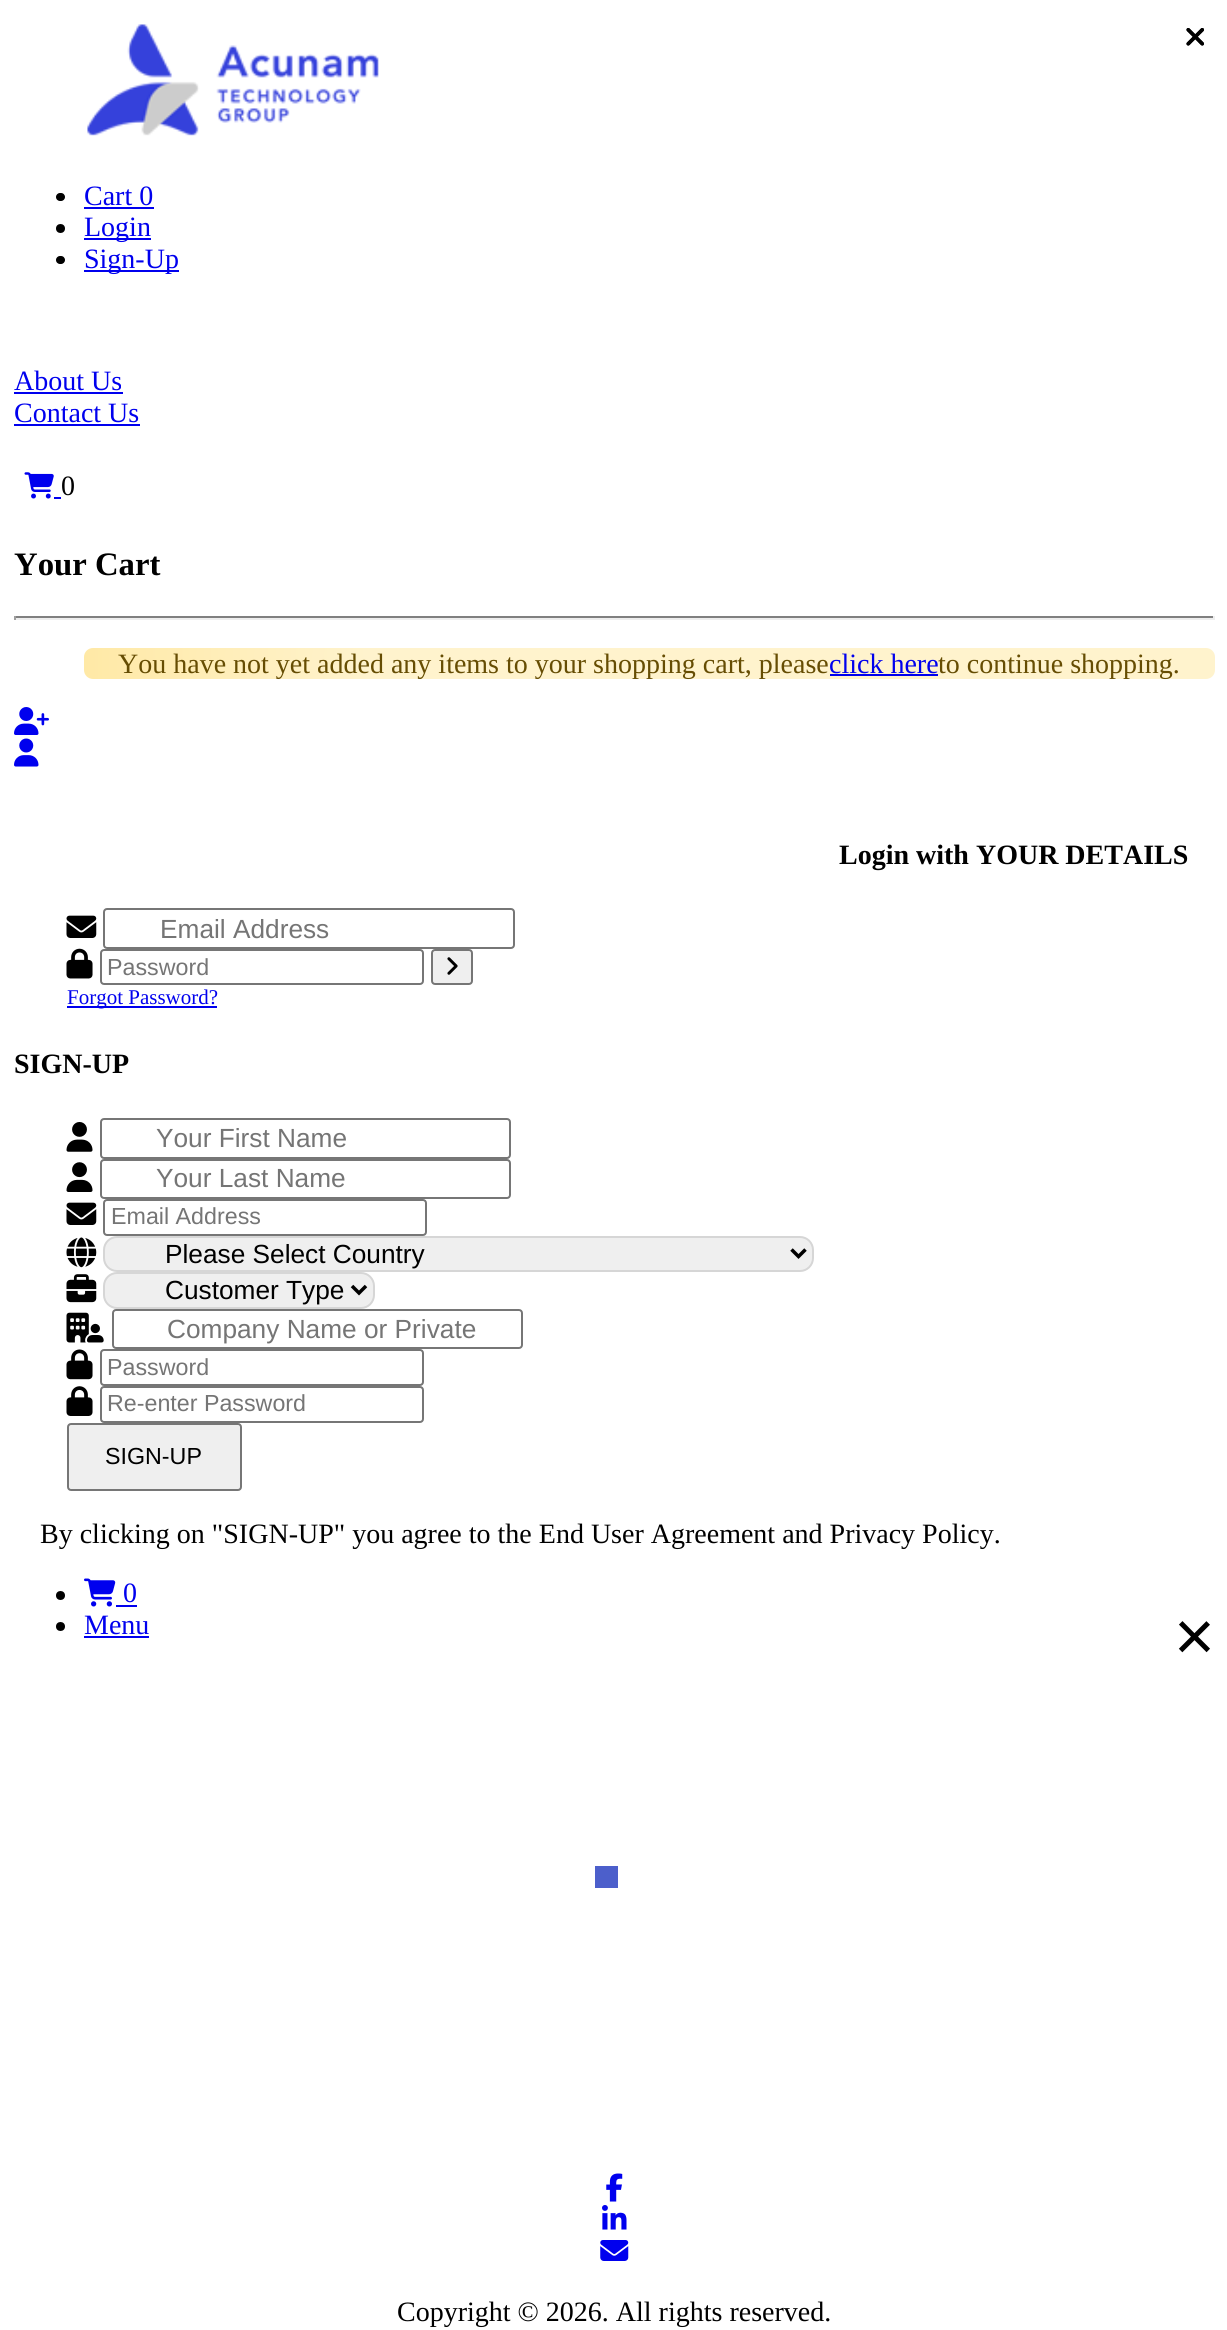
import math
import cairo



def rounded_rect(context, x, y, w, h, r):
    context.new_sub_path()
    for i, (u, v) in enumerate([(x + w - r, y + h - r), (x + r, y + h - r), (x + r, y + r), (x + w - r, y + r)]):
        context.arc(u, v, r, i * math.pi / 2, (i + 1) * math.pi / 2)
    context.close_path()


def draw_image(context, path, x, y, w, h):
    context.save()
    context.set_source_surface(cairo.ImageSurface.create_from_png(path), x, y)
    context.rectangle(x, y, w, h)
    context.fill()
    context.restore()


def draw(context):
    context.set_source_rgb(1, 1, 1)
    context.paint()
    draw_image(context, "images/1.png", 87, 24, 292, 112)
    context.set_source_rgb(0, 0, 0)
    rounded_rect(context, 56, 193, 9, 8, 4)
    context.fill()
    context.set_source_rgb(0, 0, 238 / 255)
    context.rectangle(84, 207, 70, 2)
    context.fill()
    context.set_source_rgb(0, 0, 0)
    context.arc(60.5, 228.5, 4.5, 0, 2 * math.pi)
    context.fill()
    context.set_source_rgb(0, 0, 238 / 255)
    context.rectangle(84, 238, 67, 2)
    context.fill()
    context.set_source_rgb(0, 0, 0)
    rounded_rect(context, 56, 256, 9, 8, 4)
    context.fill()
    context.set_source_rgb(0, 0, 238 / 255)
    context.rectangle(84, 270, 95, 2)
    context.fill()
    context.rectangle(14, 392, 109, 2)
    context.fill()
    context.rectangle(14, 424, 126, 2)
    context.fill()
    draw_image(context, "images/2.png", 24, 472, 30, 27)
    context.rectangle(54, 497, 7, 2)
    context.fill()
    context.set_source_rgb(128 / 255, 128 / 255, 128 / 255)
    context.rectangle(14, 616, 1201, 2)
    context.fill()
    context.set_source_rgb(238 / 255, 238 / 255, 238 / 255)
    context.rectangle(1213, 616, 2, 4)
    context.fill()
    context.rectangle(14, 618, 1201, 2)
    context.fill()
    context.set_source_rgb(159 / 255, 159 / 255, 159 / 255)
    context.rectangle(14, 616, 2, 4)
    context.fill()
    gradient = cairo.RadialGradient(791, 663, 0, 791, 663, 707)
    gradient.add_color_stop_rgba(0.6, 1, 243 / 255, 205 / 255, 1)
    gradient.add_color_stop_rgba(1, 1, 233 / 255, 166 / 255, 1)
    context.set_source(gradient)
    rounded_rect(context, 84, 648, 1131, 31, 9)
    context.fill()
    context.set_source_rgb(0, 0, 238 / 255)
    context.rectangle(830, 674, 108, 2)
    context.fill()
    draw_image(context, "images/3.png", 14, 707, 35, 28)
    draw_image(context, "images/4.png", 14, 738, 25, 29)
    draw_image(context, "images/5.png", 1186, 28, 18, 18)
    draw_image(context, "images/6.png", 66, 915, 31, 23)
    rounded_rect(context, 104, 909, 410, 39, 3)
    context.set_source_rgb(118 / 255, 118 / 255, 118 / 255)
    context.stroke()
    draw_image(context, "images/7.png", 66, 948, 27, 31)
    rounded_rect(context, 101, 950, 322, 34, 3)
    context.stroke()
    context.set_source_rgb(239 / 255, 239 / 255, 239 / 255)
    rounded_rect(context, 432, 950, 40, 34, 3)
    context.fill_preserve()
    context.set_source_rgb(118 / 255, 118 / 255, 118 / 255)
    context.stroke()
    draw_image(context, "images/8.png", 447, 957, 11, 18)
    context.set_source_rgb(0, 0, 238 / 255)
    context.rectangle(67, 1006, 150, 2)
    context.fill()
    draw_image(context, "images/9.png", 1186, 28, 18, 18)
    draw_image(context, "images/10.png", 66, 1122, 27, 30)
    rounded_rect(context, 101, 1119, 409, 39, 3)
    context.set_source_rgb(118 / 255, 118 / 255, 118 / 255)
    context.stroke()
    draw_image(context, "images/11.png", 66, 1162, 27, 30)
    rounded_rect(context, 101, 1160, 409, 38, 3)
    context.stroke()
    draw_image(context, "images/6.png", 66, 1202, 31, 23)
    rounded_rect(context, 104, 1200, 322, 35, 3)
    context.stroke()
    draw_image(context, "images/12.png", 66, 1237, 31, 31)
    context.set_source_rgb(239 / 255, 239 / 255, 239 / 255)
    rounded_rect(context, 104, 1237, 709, 34, 13)
    context.fill_preserve()
    context.set_source_rgb(214 / 255, 214 / 255, 214 / 255)
    context.stroke()
    context.new_path()
    context.move_to(791.5, 1249.5)
    context.line_to(798.5, 1256.5)
    context.line_to(805.5, 1249.5)
    context.set_source_rgb(0, 0, 0)
    context.set_line_width(3.5)
    context.stroke()
    draw_image(context, "images/13.png", 66, 1274, 31, 29)
    context.set_source_rgb(239 / 255, 239 / 255, 239 / 255)
    rounded_rect(context, 104, 1273, 270, 35, 13)
    context.fill_preserve()
    context.set_source_rgb(214 / 255, 214 / 255, 214 / 255)
    context.set_line_width(2)
    context.stroke()
    context.new_path()
    context.move_to(352, 1286)
    context.line_to(359, 1293)
    context.line_to(366, 1286)
    context.set_source_rgb(0, 0, 0)
    context.set_line_width(3.5)
    context.stroke()
    draw_image(context, "images/14.png", 66, 1312, 38, 31)
    rounded_rect(context, 113, 1310, 409, 38, 3)
    context.set_source_rgb(118 / 255, 118 / 255, 118 / 255)
    context.set_line_width(2)
    context.stroke()
    draw_image(context, "images/15.png", 66, 1349, 27, 31)
    rounded_rect(context, 101, 1350, 322, 35, 3)
    context.stroke()
    draw_image(context, "images/16.png", 66, 1386, 27, 30)
    rounded_rect(context, 101, 1387, 322, 35, 3)
    context.stroke()
    context.set_source_rgb(239 / 255, 239 / 255, 239 / 255)
    rounded_rect(context, 68, 1424, 173, 66, 3)
    context.fill_preserve()
    context.set_source_rgb(118 / 255, 118 / 255, 118 / 255)
    context.stroke()
    context.set_source_rgb(0, 0, 0)
    context.arc(60.5, 1595.5, 4.5, 0, 2 * math.pi)
    context.fill()
    draw_image(context, "images/17.png", 84, 1578, 32, 29)
    context.set_source_rgb(0, 0, 238 / 255)
    context.rectangle(116, 1605, 21, 2)
    context.fill()
    context.set_source_rgb(0, 0, 0)
    context.arc(60.5, 1626.5, 4.5, 0, 2 * math.pi)
    context.fill()
    context.set_source_rgb(0, 0, 238 / 255)
    context.rectangle(84, 1636, 65, 2)
    context.fill()
    context.set_source_rgb(76 / 255, 95 / 255, 203 / 255)
    context.rectangle(595, 1866, 23, 22)
    context.fill()
    draw_image(context, "images/18.png", 606, 2173, 17, 29)
    draw_image(context, "images/19.png", 602, 2205, 25, 25)
    draw_image(context, "images/20.png", 600, 2240, 29, 21)
    context.select_font_face("Liberation Serif")
    context.set_font_size(28)
    context.set_source_rgb(0, 0, 238 / 255)
    context.move_to(84, 205)
    context.show_text("Cart 0")
    context.move_to(84, 236)
    context.show_text("Login")
    context.move_to(84, 268)
    context.show_text("Sign-Up")
    context.move_to(14, 390)
    context.show_text("About Us")
    context.move_to(14, 422)
    context.show_text("Contact Us")
    context.set_source_rgb(0, 0, 0)
    context.move_to(61, 495)
    context.show_text("0")
    context.select_font_face("Liberation Serif", cairo.FontSlant.NORMAL, cairo.FontWeight.BOLD)
    context.set_font_size(32.75)
    context.move_to(14, 575)
    context.show_text("Your Cart")
    context.select_font_face("Liberation Serif")
    context.set_font_size(28)
    context.set_source_rgb(102 / 255, 77 / 255, 3 / 255)
    context.move_to(118, 673)
    context.show_text("You have not yet added any items to your shopping cart, please")
    context.set_source_rgb(0, 0, 238 / 255)
    context.move_to(829, 673)
    context.show_text("click here")
    context.set_source_rgb(102 / 255, 77 / 255, 3 / 255)
    context.move_to(938, 673)
    context.show_text("to continue shopping.")
    context.select_font_face("Liberation Serif", cairo.FontSlant.NORMAL, cairo.FontWeight.BOLD)
    context.set_source_rgb(0, 0, 0)
    context.move_to(839, 864)
    context.show_text("Login with YOUR DETAILS")
    context.select_font_face("Liberation Sans")
    context.set_font_size(26.25)
    context.set_source_rgb(117 / 255, 117 / 255, 117 / 255)
    context.move_to(160, 938)
    context.show_text("Email Address")
    context.set_font_size(23.25)
    context.move_to(107, 975)
    context.show_text("Password")
    context.select_font_face("Liberation Serif")
    context.set_font_size(21)
    context.set_source_rgb(0, 0, 238 / 255)
    context.move_to(67, 1004)
    context.show_text("Forgot Password?")
    context.select_font_face("Liberation Serif", cairo.FontSlant.NORMAL, cairo.FontWeight.BOLD)
    context.set_font_size(28)
    context.set_source_rgb(0, 0, 0)
    context.move_to(14, 1073)
    context.show_text("SIGN-UP")
    context.select_font_face("Liberation Sans")
    context.set_font_size(26.25)
    context.set_source_rgb(117 / 255, 117 / 255, 117 / 255)
    context.move_to(156, 1147)
    context.show_text("Your First Name")
    context.move_to(156, 1187)
    context.show_text("Your Last Name")
    context.set_font_size(23.25)
    context.move_to(111, 1224)
    context.show_text("Email Address")
    context.set_font_size(26.25)
    context.set_source_rgb(0, 0, 0)
    context.move_to(165, 1263)
    context.show_text("Please Select Country")
    context.move_to(165, 1299)
    context.show_text("Customer Type")
    context.set_source_rgb(117 / 255, 117 / 255, 117 / 255)
    context.move_to(167, 1338)
    context.show_text("Company Name or Private")
    context.set_font_size(23.25)
    context.move_to(107, 1375)
    context.show_text("Password")
    context.move_to(107, 1411)
    context.show_text("Re-enter Password")
    context.set_source_rgb(0, 0, 0)
    context.move_to(105, 1464)
    context.show_text("SIGN-UP")
    context.select_font_face("Liberation Serif")
    context.set_font_size(28)
    context.move_to(40, 1543)
    context.show_text("By clicking on \"SIGN-UP\" you agree to the End User Agreement and Privacy Policy.")
    context.set_source_rgb(0, 0, 238 / 255)
    context.move_to(123, 1602)
    context.show_text("0")
    context.move_to(84, 1634)
    context.show_text("Menu")
    context.select_font_face("Liberation Sans")
    context.set_font_size(70)
    context.set_source_rgb(0, 0, 0)
    context.move_to(1174, 1660)
    context.show_text("×")
    context.select_font_face("Liberation Serif")
    context.set_font_size(28)
    context.move_to(397, 2321)
    context.show_text("Copyright © 2026. All rights reserved.")


surface = cairo.ImageSurface(cairo.Format.RGB24, 1227, 2330)
context = cairo.Context(surface)
options = cairo.FontOptions()
options.set_hint_metrics(cairo.HintMetrics.OFF)
options.set_hint_style(cairo.HintStyle.NONE)
context.set_font_options(options)
context.set_miter_limit(4)
draw(context)
surface.write_to_png("out.png")
